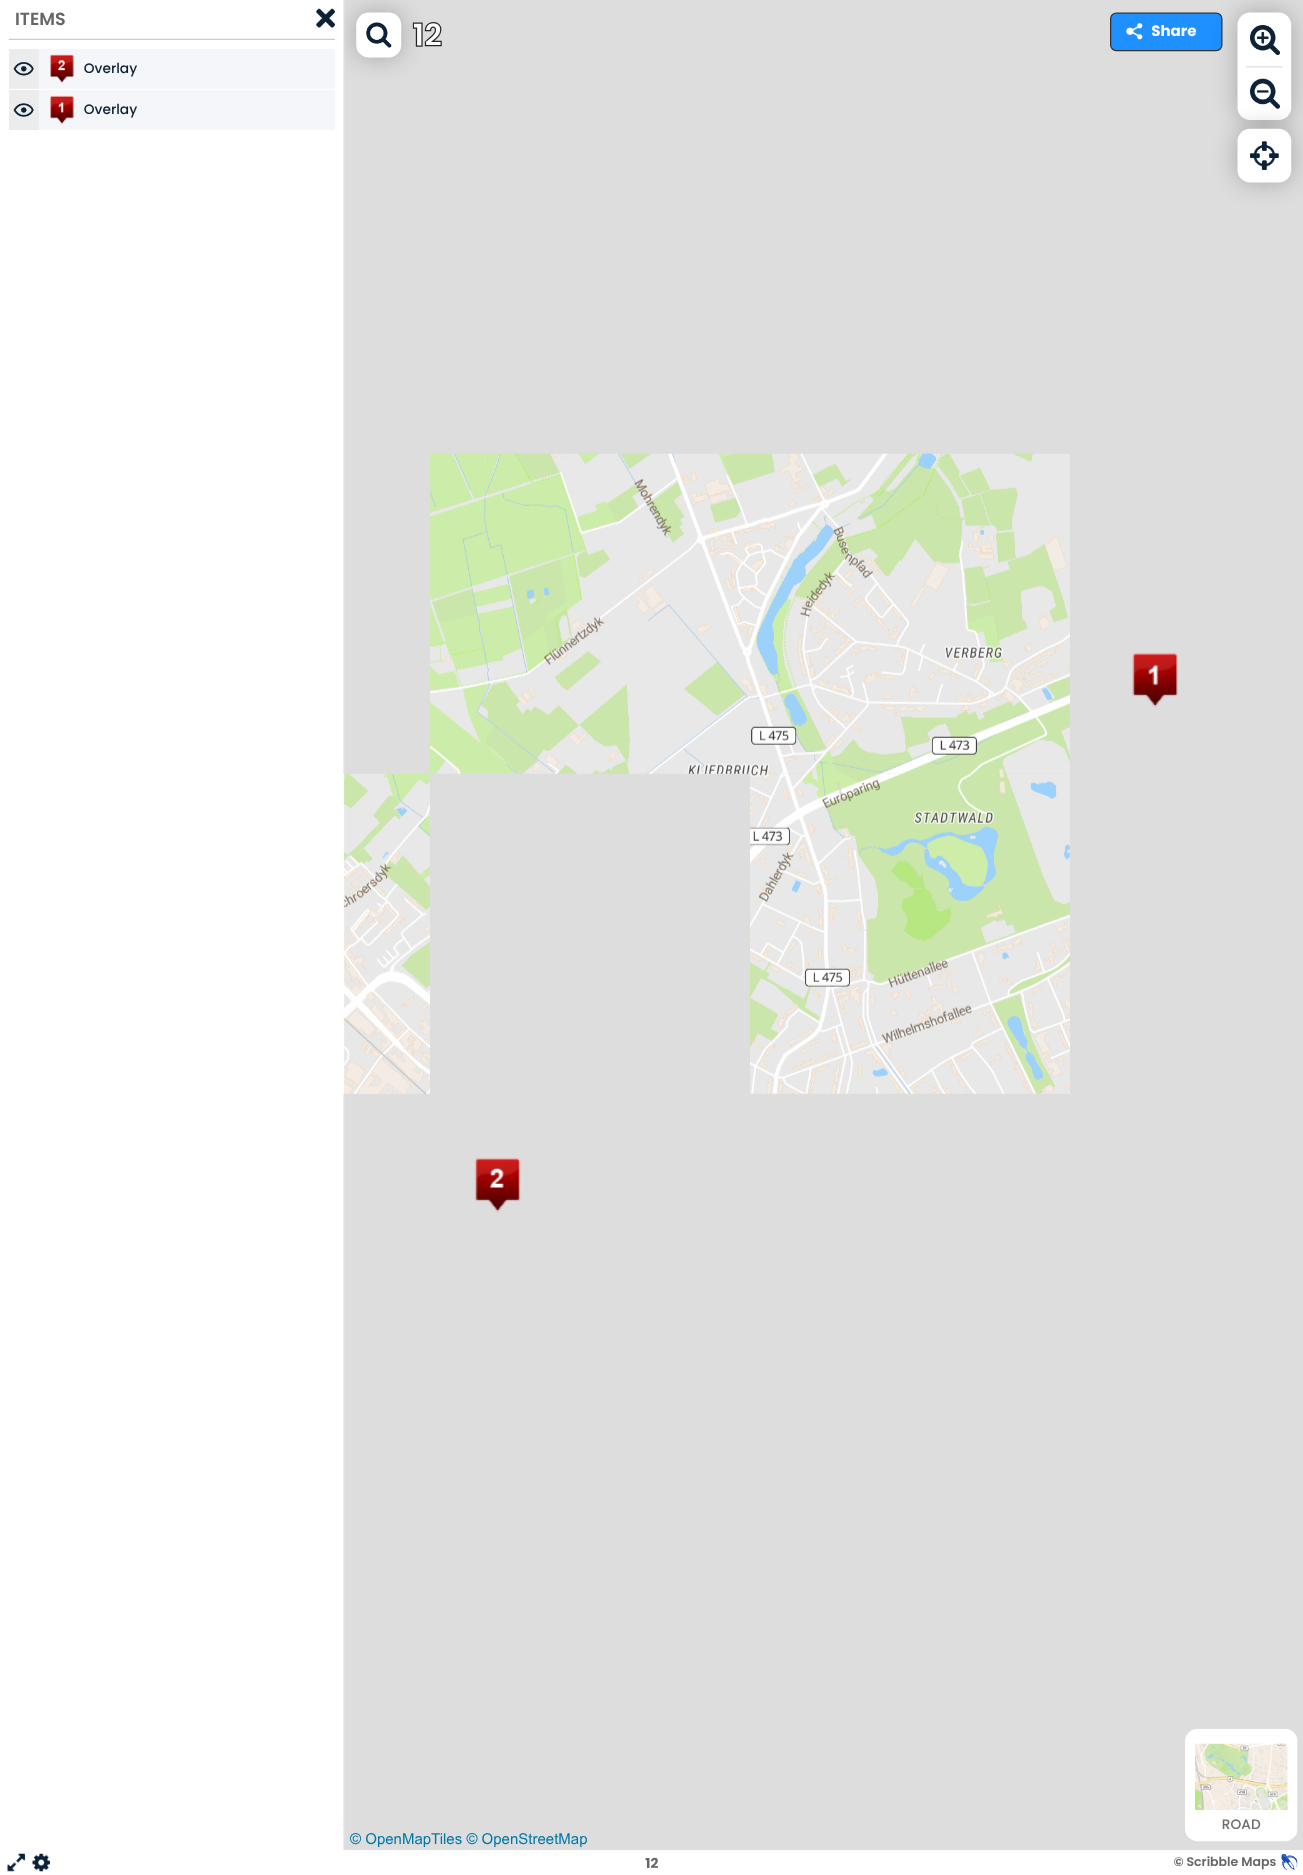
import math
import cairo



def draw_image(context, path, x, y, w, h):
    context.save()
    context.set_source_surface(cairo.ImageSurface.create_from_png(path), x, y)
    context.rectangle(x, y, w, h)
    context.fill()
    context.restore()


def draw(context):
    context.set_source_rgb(1, 1, 1)
    context.paint()
    draw_image(context, "images/1.png", 7, 0, 1296, 1872)


surface = cairo.ImageSurface(cairo.Format.RGB24, 1303, 1875)
context = cairo.Context(surface)
options = cairo.FontOptions()
options.set_hint_metrics(cairo.HintMetrics.OFF)
options.set_hint_style(cairo.HintStyle.NONE)
context.set_font_options(options)
context.set_miter_limit(4)
draw(context)
surface.write_to_png("out.png")
